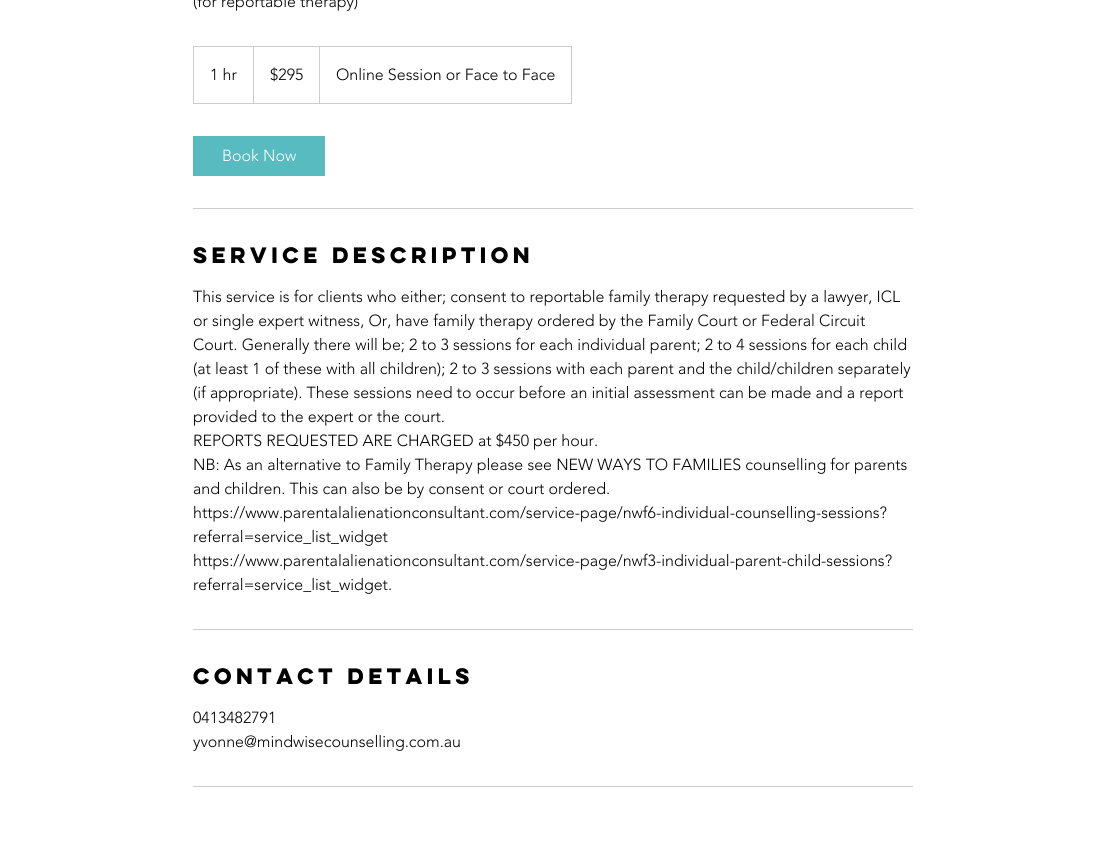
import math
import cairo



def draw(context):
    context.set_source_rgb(1, 1, 1)
    context.paint()
    context.rectangle(193.5, 46.5, 378, 57)
    context.set_source_rgb(204 / 255, 204 / 255, 204 / 255)
    context.set_line_width(1)
    context.stroke()
    context.new_path()
    context.move_to(253, 103)
    context.line_to(253, 46)
    context.line_to(254, 47)
    context.line_to(254, 103)
    context.close_path()
    context.fill()
    context.new_path()
    context.move_to(319, 103)
    context.line_to(319, 46)
    context.line_to(320, 47)
    context.line_to(320, 103)
    context.close_path()
    context.fill()
    context.set_source_rgb(87 / 255, 187 / 255, 191 / 255)
    context.rectangle(193, 136, 132, 40)
    context.fill()
    context.set_source_rgb(204 / 255, 204 / 255, 204 / 255)
    context.rectangle(193, 208, 720, 1)
    context.fill()
    context.rectangle(193, 629, 720, 1)
    context.fill()
    context.rectangle(193, 786, 720, 1)
    context.fill()
    context.select_font_face("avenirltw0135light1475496 Light")
    context.set_font_size(16)
    context.set_source_rgb(0, 0, 0)
    context.move_to(193, 7)
    context.show_text("(for reportable therapy)")
    context.move_to(210, 80)
    context.show_text("1 hr")
    context.move_to(270, 80)
    context.show_text("$295")
    context.move_to(336, 80)
    context.show_text("Online Session or Face to Face")
    context.set_source_rgb(1, 1, 1)
    context.move_to(222, 161)
    context.show_text("Book Now")
    context.select_font_face("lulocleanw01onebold", cairo.FontSlant.NORMAL, cairo.FontWeight.BOLD)
    context.set_font_size(20)
    context.set_source_rgb(0, 0, 0)
    context.move_to(193, 263)
    context.show_text("Service Description")
    context.select_font_face("avenirltw0135light1475496 Light")
    context.set_font_size(16)
    context.move_to(193, 302)
    context.show_text("This service is for clients who either; consent to reportable family therapy requested by a lawyer, ICL")
    context.move_to(193, 326)
    context.show_text("or single expert witness, Or, have family therapy ordered by the Family Court or Federal Circuit")
    context.move_to(193, 350)
    context.show_text("Court. Generally there will be; 2 to 3 sessions for each individual parent; 2 to 4 sessions for each child")
    context.move_to(193, 374)
    context.show_text("(at least 1 of these with all children); 2 to 3 sessions with each parent and the child/children separately")
    context.move_to(193, 398)
    context.show_text("(if appropriate). These sessions need to occur before an initial assessment can be made and a report")
    context.move_to(193, 422)
    context.show_text("provided to the expert or the court.")
    context.move_to(193, 446)
    context.show_text("REPORTS REQUESTED ARE CHARGED at $450 per hour.")
    context.move_to(193, 470)
    context.show_text("NB: As an alternative to Family Therapy please see NEW WAYS TO FAMILIES counselling for parents")
    context.move_to(193, 494)
    context.show_text("and children. This can also be by consent or court ordered.")
    context.move_to(193, 518)
    context.show_text("https://www.parentalalienationconsultant.com/service-page/nwf6-individual-counselling-sessions?")
    context.move_to(193, 542)
    context.show_text("referral=service_list_widget")
    context.move_to(193, 566)
    context.show_text("https://www.parentalalienationconsultant.com/service-page/nwf3-individual-parent-child-sessions?")
    context.move_to(193, 590)
    context.show_text("referral=service_list_widget.")
    context.select_font_face("lulocleanw01onebold", cairo.FontSlant.NORMAL, cairo.FontWeight.BOLD)
    context.set_font_size(20)
    context.move_to(193, 684)
    context.show_text("Contact Details")
    context.select_font_face("avenirltw0135light1475496 Light")
    context.set_font_size(16)
    context.move_to(193, 723)
    context.show_text("0413482791")
    context.move_to(193, 747)
    context.show_text("yvonne@mindwisecounselling.com.au")


surface = cairo.ImageSurface(cairo.Format.RGB24, 1106, 841)
context = cairo.Context(surface)
options = cairo.FontOptions()
options.set_hint_metrics(cairo.HintMetrics.OFF)
options.set_hint_style(cairo.HintStyle.NONE)
context.set_font_options(options)
context.set_miter_limit(4)
draw(context)
surface.write_to_png("out.png")
